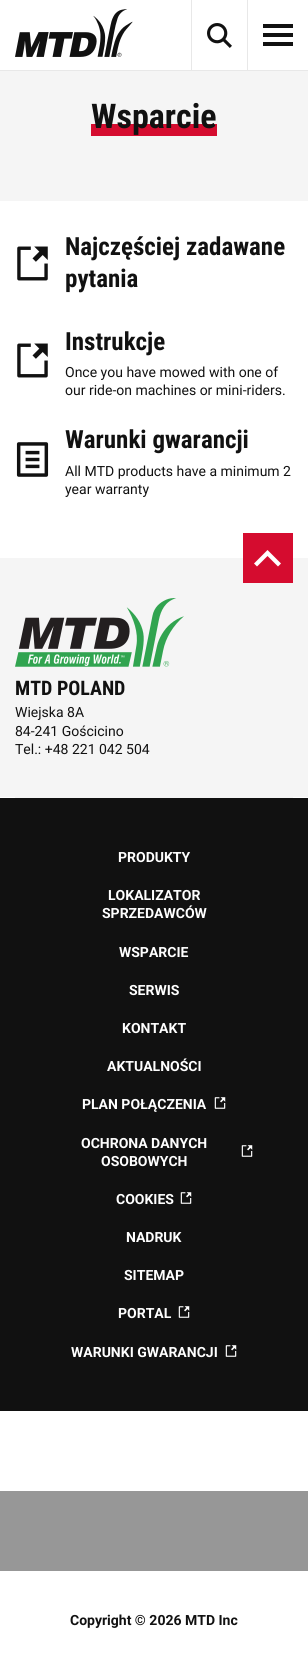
import math
import cairo



def draw_image(context, path, x, y, w, h):
    context.save()
    context.set_source_surface(cairo.ImageSurface.create_from_png(path), x, y)
    context.rectangle(x, y, w, h)
    context.fill()
    context.restore()


def draw(context):
    context.set_source_rgb(1, 1, 1)
    context.paint()
    context.set_source_rgb(232 / 255, 232 / 255, 232 / 255)
    context.rectangle(0, 70, 308, 1)
    context.fill()
    draw_image(context, "images/1.png", 15, 9, 118, 48)
    context.rectangle(247, 0, 1, 70)
    context.fill()
    context.rectangle(191, 0, 1, 70)
    context.fill()
    draw_image(context, "images/2.png", 207, 23, 25, 25)
    context.set_source_rgb(17 / 255, 17 / 255, 17 / 255)
    context.rectangle(263, 33, 30, 4)
    context.fill()
    context.rectangle(263, 24, 30, 4)
    context.fill()
    context.rectangle(263, 42, 30, 4)
    context.fill()
    context.set_source_rgb(245 / 255, 245 / 255, 245 / 255)
    context.rectangle(0, 71, 308, 130)
    context.fill()
    context.set_source_rgb(213 / 255, 12 / 255, 47 / 255)
    context.rectangle(91, 124, 126, 12)
    context.fill()
    draw_image(context, "images/3.png", 17, 246, 31, 35)
    draw_image(context, "images/3.png", 17, 343, 31, 35)
    draw_image(context, "images/4.png", 16, 442, 33, 35)
    context.set_source_rgb(245 / 255, 245 / 255, 245 / 255)
    context.rectangle(15, 558, 278, 240)
    context.fill()
    context.set_source_rgb(213 / 255, 12 / 255, 47 / 255)
    context.rectangle(243, 533, 50, 50)
    context.fill()
    context.set_source_rgb(1, 1, 1)
    context.new_path()
    context.move_to(267.5, 556)
    context.line_to(257, 566.5)
    context.line_to(254, 563.5)
    context.line_to(267.5, 550)
    context.line_to(281, 563.5)
    context.line_to(278, 566.5)
    context.close_path()
    context.fill()
    context.set_source_rgb(245 / 255, 245 / 255, 245 / 255)
    context.rectangle(0, 558, 15, 239)
    context.fill()
    draw_image(context, "images/5.png", 15, 598, 169, 69)
    context.rectangle(293, 558, 15, 239)
    context.fill()
    context.set_source_rgb(17 / 255, 17 / 255, 17 / 255)
    context.rectangle(0, 798, 293, 613)
    context.fill()
    context.rectangle(293, 798, 15, 613)
    context.fill()
    draw_image(context, "images/6.png", 214, 1097, 12, 12)
    draw_image(context, "images/6.png", 241, 1145, 12, 12)
    draw_image(context, "images/6.png", 180, 1192, 12, 12)
    draw_image(context, "images/6.png", 178, 1306, 12, 12)
    draw_image(context, "images/6.png", 225, 1345, 12, 12)
    context.set_source_rgb(151 / 255, 151 / 255, 151 / 255)
    context.rectangle(0, 1491, 308, 80)
    context.fill()
    context.select_font_face("Roboto Condensed", cairo.FontSlant.NORMAL, cairo.FontWeight.BOLD)
    context.set_font_size(34)
    context.set_source_rgb(17 / 255, 17 / 255, 17 / 255)
    context.move_to(91, 128)
    context.show_text("Wsparcie")
    context.set_font_size(25)
    context.move_to(65, 255)
    context.show_text("Najczęściej zadawane")
    context.move_to(65, 287)
    context.show_text("pytania")
    context.move_to(65, 350)
    context.show_text("Instrukcje")
    context.select_font_face("Roboto")
    context.set_font_size(14)
    context.move_to(65, 377)
    context.show_text("Once you have mowed with one of")
    context.move_to(65, 395)
    context.show_text("our ride-on machines or mini-riders.")
    context.select_font_face("Roboto Condensed", cairo.FontSlant.NORMAL, cairo.FontWeight.BOLD)
    context.set_font_size(25)
    context.move_to(65, 448)
    context.show_text("Warunki gwarancji")
    context.select_font_face("Roboto")
    context.set_font_size(14)
    context.move_to(65, 476)
    context.show_text("All MTD products have a minimum 2")
    context.move_to(65, 494)
    context.show_text("year warranty")
    context.select_font_face("Roboto Condensed", cairo.FontSlant.NORMAL, cairo.FontWeight.BOLD)
    context.set_font_size(20)
    context.move_to(15, 695)
    context.show_text("MTD POLAND")
    context.select_font_face("Roboto")
    context.set_font_size(14)
    context.move_to(15, 717)
    context.show_text("Wiejska 8A")
    context.move_to(15, 736)
    context.show_text("84-241 Gościcino")
    context.move_to(15, 754)
    context.show_text("Tel.: +48 221 042 504")
    context.select_font_face("Roboto", cairo.FontSlant.NORMAL, cairo.FontWeight.BOLD)
    context.set_source_rgb(1, 1, 1)
    context.move_to(118, 862)
    context.show_text("PRODUKTY")
    context.move_to(108, 900)
    context.show_text("LOKALIZATOR")
    context.move_to(102, 918)
    context.show_text("SPRZEDAWCÓW")
    context.move_to(119, 957)
    context.show_text("WSPARCIE")
    context.move_to(129, 995)
    context.show_text("SERWIS")
    context.move_to(122, 1033)
    context.show_text("KONTAKT")
    context.move_to(107, 1071)
    context.show_text("AKTUALNOŚCI")
    context.move_to(82, 1109)
    context.show_text("PLAN POŁĄCZENIA")
    context.move_to(81, 1148)
    context.show_text("OCHRONA DANYCH")
    context.move_to(101, 1166)
    context.show_text("OSOBOWYCH")
    context.move_to(116, 1204)
    context.show_text("COOKIES")
    context.move_to(126, 1242)
    context.show_text("NADRUK")
    context.move_to(124, 1280)
    context.show_text("SITEMAP")
    context.move_to(118, 1318)
    context.show_text("PORTAL")
    context.move_to(71, 1357)
    context.show_text("WARUNKI GWARANCJI")
    context.set_source_rgb(17 / 255, 17 / 255, 17 / 255)
    context.move_to(70, 1625)
    context.show_text("Copyright © 2026 MTD Inc")


surface = cairo.ImageSurface(cairo.Format.RGB24, 308, 1665)
context = cairo.Context(surface)
options = cairo.FontOptions()
options.set_hint_metrics(cairo.HintMetrics.OFF)
options.set_hint_style(cairo.HintStyle.NONE)
context.set_font_options(options)
context.set_miter_limit(4)
draw(context)
surface.write_to_png("out.png")
